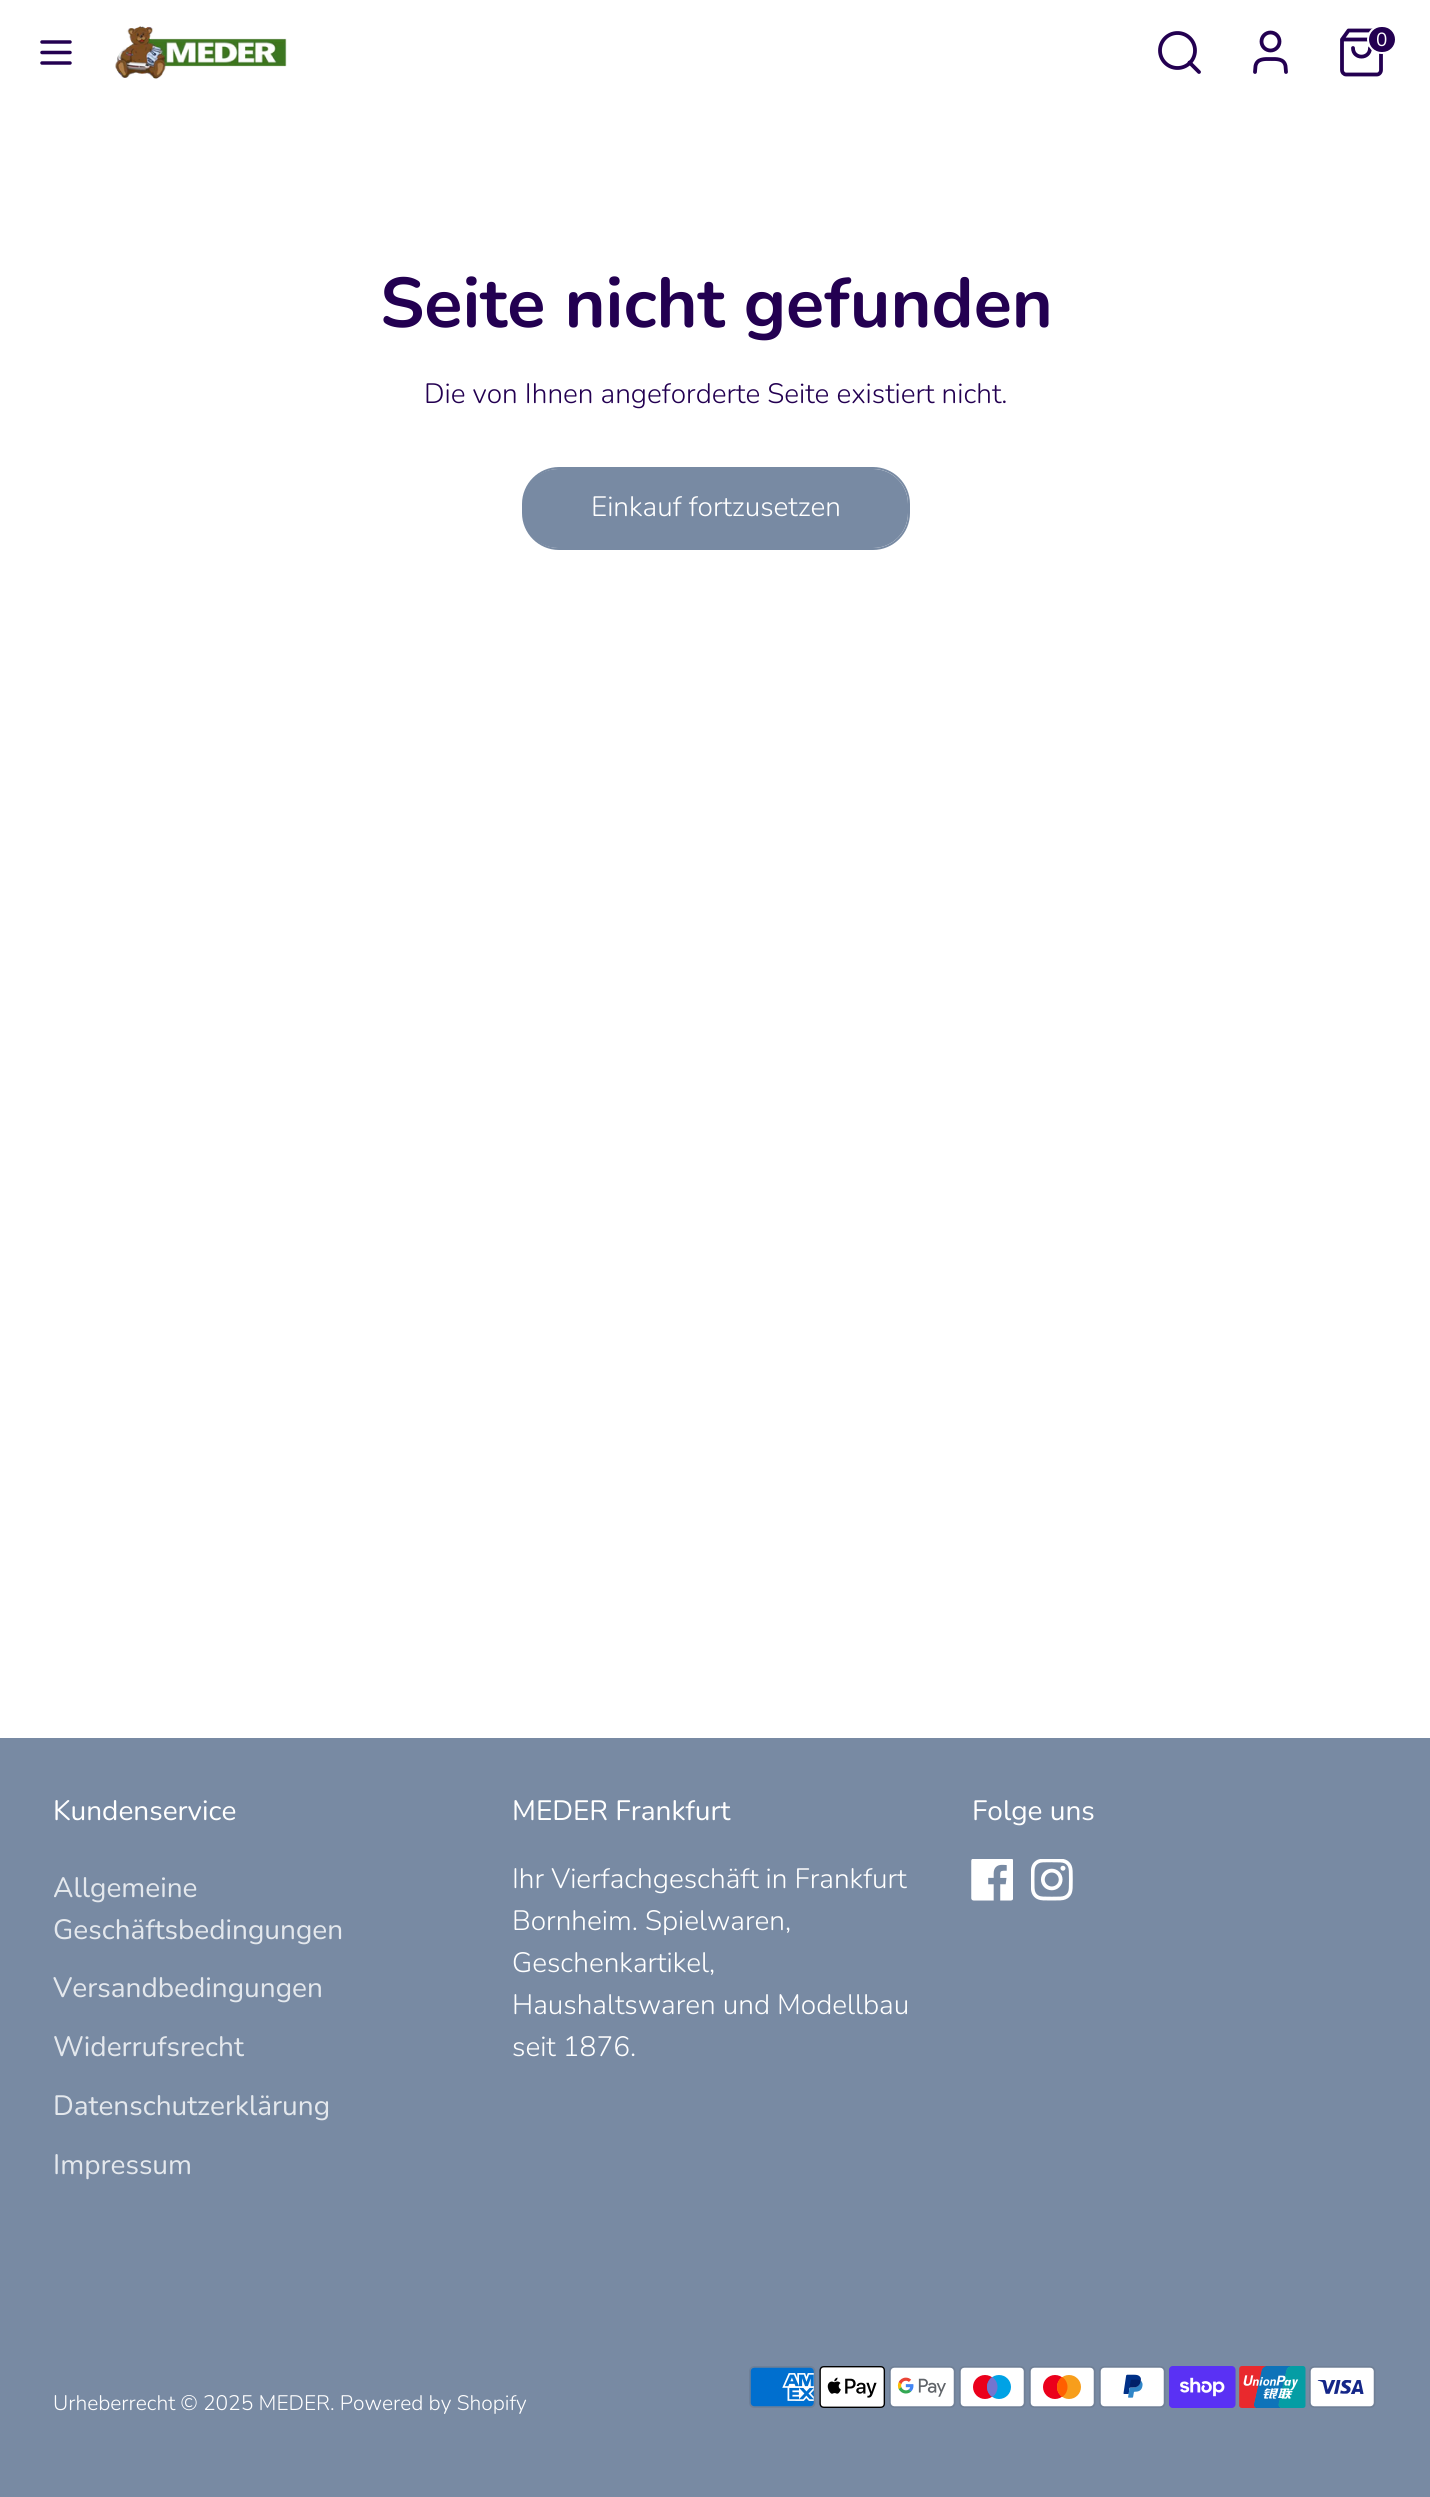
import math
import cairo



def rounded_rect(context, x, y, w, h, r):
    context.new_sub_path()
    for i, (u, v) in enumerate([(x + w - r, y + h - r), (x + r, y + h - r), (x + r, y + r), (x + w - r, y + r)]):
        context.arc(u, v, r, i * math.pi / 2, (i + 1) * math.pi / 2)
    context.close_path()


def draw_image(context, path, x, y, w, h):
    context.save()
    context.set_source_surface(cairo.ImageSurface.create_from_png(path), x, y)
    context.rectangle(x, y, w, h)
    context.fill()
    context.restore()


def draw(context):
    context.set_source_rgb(1, 1, 1)
    context.paint()
    context.new_path()
    context.move_to(42, 52.5)
    context.line_to(70, 52.5)
    context.move_to(42, 42)
    context.line_to(70, 42)
    context.move_to(42, 63)
    context.line_to(70, 63)
    context.set_source_rgb(35 / 255, 0, 81 / 255)
    context.set_line_width(3.5)
    context.set_line_cap(cairo.LineCap.ROUND)
    context.set_line_join(cairo.LineJoin.ROUND)
    context.stroke()
    draw_image(context, "images/1.png", 115, 26, 172, 53)
    context.arc(1177.5, 50.5, 17.5, 0, 2 * math.pi)
    context.set_line_width(3.8)
    context.set_line_cap(cairo.LineCap.BUTT)
    context.set_line_join(cairo.LineJoin.MITER)
    context.stroke()
    context.new_path()
    context.move_to(1199, 72)
    context.line_to(1189.5, 62.5)
    context.set_line_cap(cairo.LineCap.ROUND)
    context.set_line_join(cairo.LineJoin.ROUND)
    context.stroke()
    context.new_path()
    context.move_to(1286, 72)
    context.line_to(1285.5, 66)
    context.curve_to(1284, 58.5, 1276.5, 59, 1270.5, 59)
    context.curve_to(1264.5, 59, 1257, 58.5, 1255.5, 66)
    context.line_to(1255, 72)
    context.stroke()
    context.arc(1270.5, 41.5, 9, 0, 2 * math.pi)
    context.set_line_cap(cairo.LineCap.BUTT)
    context.set_line_join(cairo.LineJoin.MITER)
    context.stroke()
    context.new_path()
    context.move_to(1348.5, 30.5)
    context.line_to(1342, 39.5)
    context.line_to(1342, 70)
    context.curve_to(1342, 72.5, 1344, 74.5, 1346, 74.5)
    context.line_to(1377, 74.5)
    context.curve_to(1379, 74.5, 1381, 72.5, 1381, 70)
    context.line_to(1381, 39.5)
    context.line_to(1374.5, 30.5)
    context.close_path()
    context.move_to(1342, 39.5)
    context.line_to(1381, 39.5)
    context.move_to(1370, 48)
    context.curve_to(1370, 59.5, 1353, 59.5, 1353, 48)
    context.set_line_cap(cairo.LineCap.ROUND)
    context.set_line_join(cairo.LineJoin.ROUND)
    context.stroke()
    rounded_rect(context, 1368, 26, 28, 27, 13.5)
    context.fill_preserve()
    context.set_source_rgb(1, 1, 1)
    context.set_line_width(2)
    context.set_line_cap(cairo.LineCap.BUTT)
    context.set_line_join(cairo.LineJoin.MITER)
    context.stroke()
    rounded_rect(context, 523, 468, 386, 81, 36)
    context.set_source_rgb(120 / 255, 138 / 255, 163 / 255)
    context.stroke()
    rounded_rect(context, 523, 469, 385, 79, 35)
    context.fill()
    context.rectangle(0, 1738, 1430, 759)
    context.fill()
    draw_image(context, "images/2.png", 971, 1859, 42, 42)
    draw_image(context, "images/3.png", 1031, 1859, 42, 42)
    draw_image(context, "images/4.png", 749, 2366, 67, 42)
    draw_image(context, "images/5.png", 819, 2366, 67, 42)
    draw_image(context, "images/6.png", 889, 2366, 67, 42)
    draw_image(context, "images/7.png", 959, 2366, 67, 42)
    draw_image(context, "images/8.png", 1029, 2366, 67, 42)
    draw_image(context, "images/9.png", 1099, 2366, 67, 42)
    draw_image(context, "images/10.png", 1169, 2366, 67, 42)
    draw_image(context, "images/11.png", 1239, 2366, 67, 42)
    draw_image(context, "images/12.png", 1309, 2366, 67, 42)
    context.select_font_face("Nunito")
    context.set_font_size(19)
    context.set_source_rgb(1, 1, 1)
    context.move_to(1376, 46)
    context.show_text("0")
    context.select_font_face("Nunito", cairo.FontSlant.NORMAL, cairo.FontWeight.BOLD)
    context.set_font_size(70.25)
    context.set_source_rgb(35 / 255, 0, 81 / 255)
    context.move_to(380, 327)
    context.show_text("Seite nicht gefunden")
    context.select_font_face("Nunito Light")
    context.set_font_size(28)
    context.move_to(424, 403)
    context.show_text("Die von Ihnen angeforderte Seite existiert nicht.")
    context.set_source_rgb(1, 1, 1)
    context.move_to(591, 516)
    context.show_text("Einkauf fortzusetzen")
    context.select_font_face("Nunito")
    context.move_to(53, 1820)
    context.show_text("Kundenservice")
    context.set_source_rgb(228 / 255, 232 / 255, 237 / 255)
    context.move_to(53, 1897)
    context.show_text("Allgemeine")
    context.move_to(53, 1939)
    context.show_text("Geschäftsbedingungen")
    context.move_to(53, 1997)
    context.show_text("Versandbedingungen")
    context.move_to(53, 2056)
    context.show_text("Widerrufsrecht")
    context.move_to(53, 2115)
    context.show_text("Datenschutzerklärung")
    context.move_to(53, 2174)
    context.show_text("Impressum")
    context.set_source_rgb(1, 1, 1)
    context.move_to(512, 1820)
    context.show_text("MEDER Frankfurt")
    context.select_font_face("Nunito Light")
    context.move_to(512, 1888)
    context.show_text("Ihr Vierfachgeschäft in Frankfurt")
    context.move_to(512, 1930)
    context.show_text("Bornheim. Spielwaren,")
    context.move_to(512, 1972)
    context.show_text("Geschenkartikel,")
    context.move_to(512, 2014)
    context.show_text("Haushaltswaren und Modellbau")
    context.move_to(512, 2056)
    context.show_text("seit 1876.")
    context.select_font_face("Nunito")
    context.move_to(972, 1820)
    context.show_text("Folge uns")
    context.select_font_face("Nunito Light")
    context.set_font_size(21)
    context.move_to(53, 2410)
    context.show_text("Urheberrecht © 2025 MEDER. Powered by Shopify")


surface = cairo.ImageSurface(cairo.Format.RGB24, 1430, 2497)
context = cairo.Context(surface)
options = cairo.FontOptions()
options.set_hint_metrics(cairo.HintMetrics.OFF)
options.set_hint_style(cairo.HintStyle.NONE)
context.set_font_options(options)
context.set_miter_limit(4)
draw(context)
surface.write_to_png("out.png")
